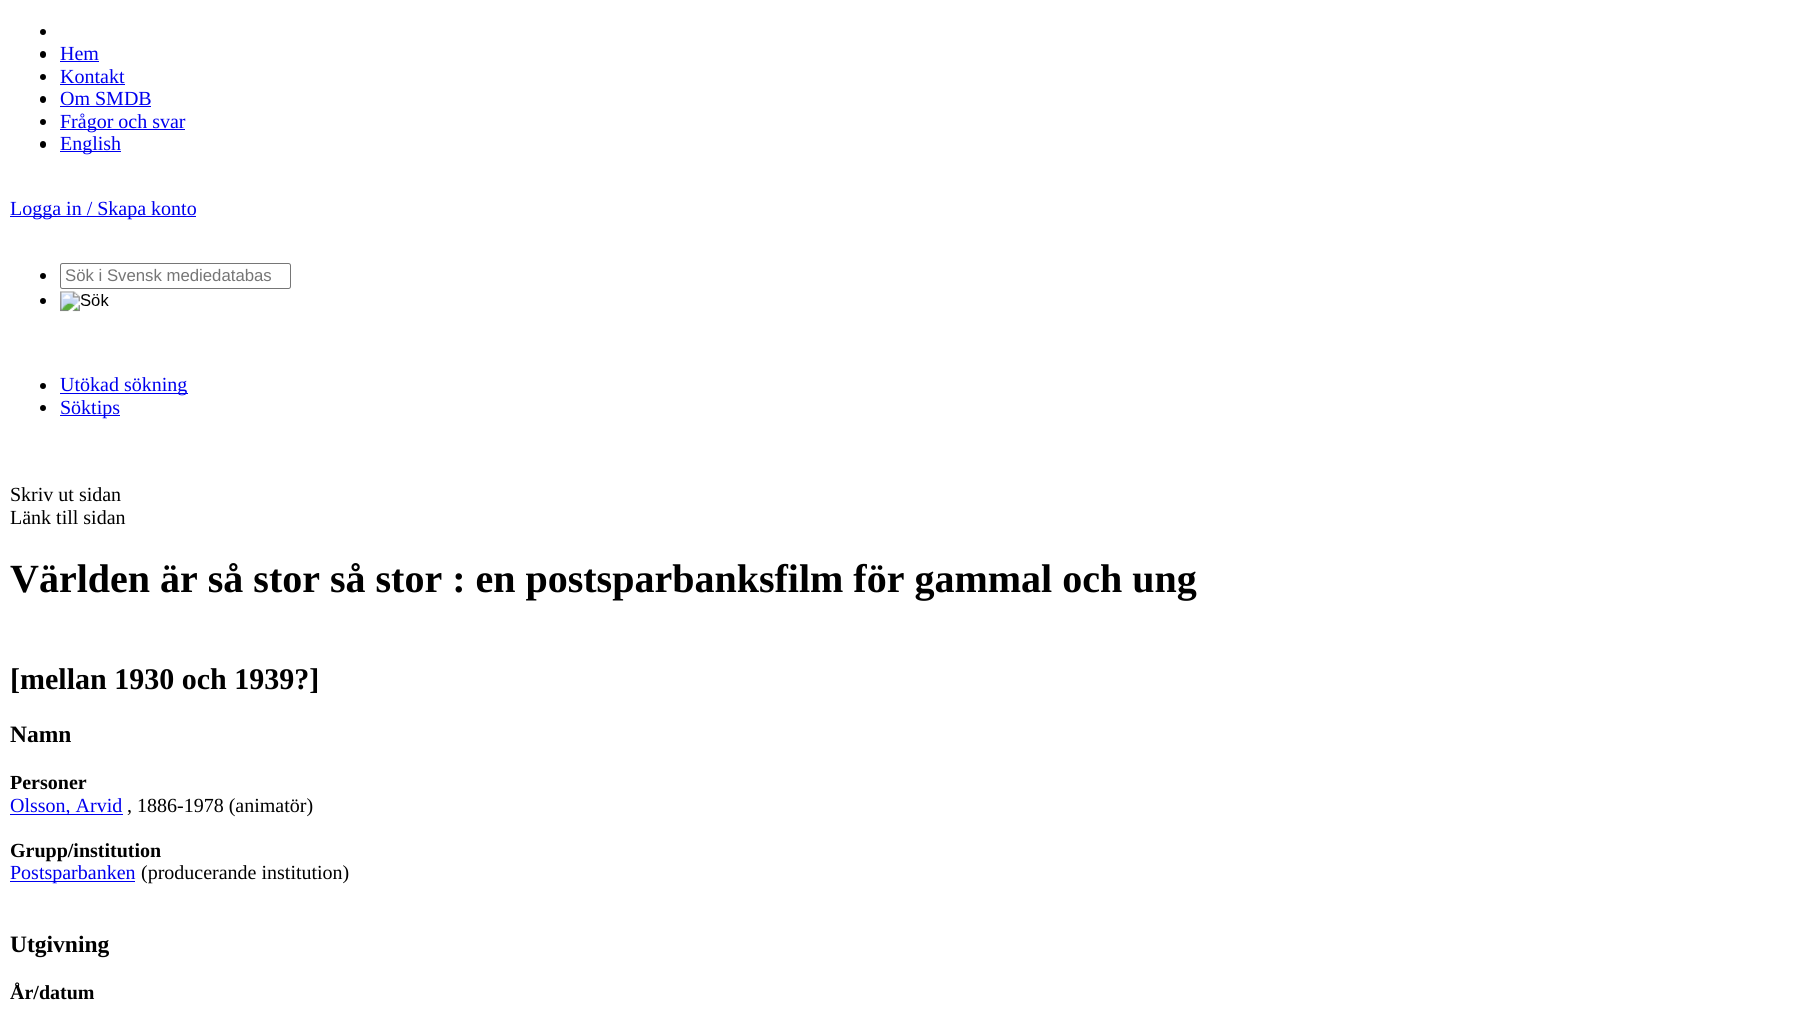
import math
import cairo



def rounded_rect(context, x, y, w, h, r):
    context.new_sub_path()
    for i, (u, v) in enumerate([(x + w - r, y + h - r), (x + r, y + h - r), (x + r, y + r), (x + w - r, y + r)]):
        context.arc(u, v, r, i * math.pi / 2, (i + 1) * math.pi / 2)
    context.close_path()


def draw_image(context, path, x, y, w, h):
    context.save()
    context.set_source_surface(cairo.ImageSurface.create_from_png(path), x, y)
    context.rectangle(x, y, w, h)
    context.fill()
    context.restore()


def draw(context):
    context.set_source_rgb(1, 1, 1)
    context.paint()
    context.set_source_rgb(0, 0, 0)
    context.arc(43, 32, 3, 0, 2 * math.pi)
    context.fill()
    rounded_rect(context, 40, 51, 6, 7, 3)
    context.fill()
    context.set_source_rgb(0, 0, 238 / 255)
    context.rectangle(60, 61, 39, 1)
    context.fill()
    context.set_source_rgb(0, 0, 0)
    context.arc(43, 77, 3, 0, 2 * math.pi)
    context.fill()
    context.set_source_rgb(0, 0, 238 / 255)
    context.rectangle(60, 84, 65, 1)
    context.fill()
    context.set_source_rgb(0, 0, 0)
    rounded_rect(context, 40, 96, 6, 7, 3)
    context.fill()
    context.set_source_rgb(0, 0, 238 / 255)
    context.rectangle(60, 106, 91, 1)
    context.fill()
    context.set_source_rgb(0, 0, 0)
    context.arc(43, 122, 3, 0, 2 * math.pi)
    context.fill()
    context.set_source_rgb(0, 0, 238 / 255)
    context.rectangle(60, 129, 125, 1)
    context.fill()
    context.set_source_rgb(0, 0, 0)
    rounded_rect(context, 40, 141, 6, 7, 3)
    context.fill()
    context.set_source_rgb(0, 0, 238 / 255)
    context.rectangle(60, 151, 61, 1)
    context.fill()
    context.rectangle(10, 216, 186, 1)
    context.fill()
    context.set_source_rgb(0, 0, 0)
    context.arc(43, 276, 3, 0, 2 * math.pi)
    context.fill()
    rounded_rect(context, 60.5, 263.5, 230, 25, 2)
    context.set_source_rgb(118 / 255, 118 / 255, 118 / 255)
    context.set_line_width(1)
    context.stroke()
    context.set_source_rgb(0, 0, 0)
    context.arc(43, 301, 3, 0, 2 * math.pi)
    context.fill()
    draw_image(context, "images/1.png", 60, 291, 49, 21)
    context.arc(43, 386, 3, 0, 2 * math.pi)
    context.fill()
    context.set_source_rgb(0, 0, 238 / 255)
    context.rectangle(60, 393, 128, 1)
    context.fill()
    context.set_source_rgb(0, 0, 0)
    context.arc(43, 408, 3, 0, 2 * math.pi)
    context.fill()
    context.set_source_rgb(0, 0, 238 / 255)
    context.rectangle(60, 415, 60, 1)
    context.fill()
    context.rectangle(10, 814, 113, 1)
    context.fill()
    context.rectangle(10, 881, 125, 1)
    context.fill()
    context.select_font_face("Liberation Serif")
    context.set_font_size(20)
    context.move_to(60, 60)
    context.show_text("Hem")
    context.move_to(60, 83)
    context.show_text("Kontakt")
    context.move_to(60, 105)
    context.show_text("Om SMDB")
    context.move_to(60, 128)
    context.show_text("Frågor och svar")
    context.move_to(60, 150)
    context.show_text("English")
    context.move_to(10, 215)
    context.show_text("Logga in / Skapa konto")
    context.select_font_face("Liberation Sans")
    context.set_font_size(16.75)
    context.set_source_rgb(117 / 255, 117 / 255, 117 / 255)
    context.move_to(65, 281)
    context.show_text("Sök i Svensk mediedatabas")
    context.select_font_face("Liberation Serif")
    context.set_font_size(20)
    context.set_source_rgb(0, 0, 238 / 255)
    context.move_to(60, 391)
    context.show_text("Utökad sökning")
    context.move_to(60, 414)
    context.show_text("Söktips")
    context.set_source_rgb(0, 0, 0)
    context.move_to(10, 501)
    context.show_text("Skriv ut sidan")
    context.move_to(10, 524)
    context.show_text("Länk till sidan")
    context.select_font_face("Liberation Serif", cairo.FontSlant.NORMAL, cairo.FontWeight.BOLD)
    context.set_font_size(40)
    context.move_to(10, 592)
    context.show_text("Världen är så stor så stor : en postsparbanksfilm för gammal och ung")
    context.set_font_size(30)
    context.move_to(10, 689)
    context.show_text("[mellan 1930 och 1939?]")
    context.set_font_size(23.5)
    context.move_to(10, 742)
    context.show_text("Namn")
    context.set_font_size(20)
    context.move_to(10, 789)
    context.show_text("Personer")
    context.select_font_face("Liberation Serif")
    context.set_source_rgb(0, 0, 238 / 255)
    context.move_to(10, 812)
    context.show_text("Olsson, Arvid")
    context.set_source_rgb(0, 0, 0)
    context.move_to(127, 812)
    context.show_text(", 1886-1978 (animatör)")
    context.select_font_face("Liberation Serif", cairo.FontSlant.NORMAL, cairo.FontWeight.BOLD)
    context.move_to(10, 857)
    context.show_text("Grupp/institution")
    context.select_font_face("Liberation Serif")
    context.set_source_rgb(0, 0, 238 / 255)
    context.move_to(10, 879)
    context.show_text("Postsparbanken")
    context.set_source_rgb(0, 0, 0)
    context.move_to(141, 879)
    context.show_text("(producerande institution)")
    context.select_font_face("Liberation Serif", cairo.FontSlant.NORMAL, cairo.FontWeight.BOLD)
    context.set_font_size(23.5)
    context.move_to(10, 952)
    context.show_text("Utgivning")
    context.set_font_size(20)
    context.move_to(10, 999)
    context.show_text("År/datum")


surface = cairo.ImageSurface(cairo.Format.RGB24, 1820, 1017)
context = cairo.Context(surface)
options = cairo.FontOptions()
options.set_hint_metrics(cairo.HintMetrics.OFF)
options.set_hint_style(cairo.HintStyle.NONE)
context.set_font_options(options)
context.set_miter_limit(4)
draw(context)
surface.write_to_png("out.png")
